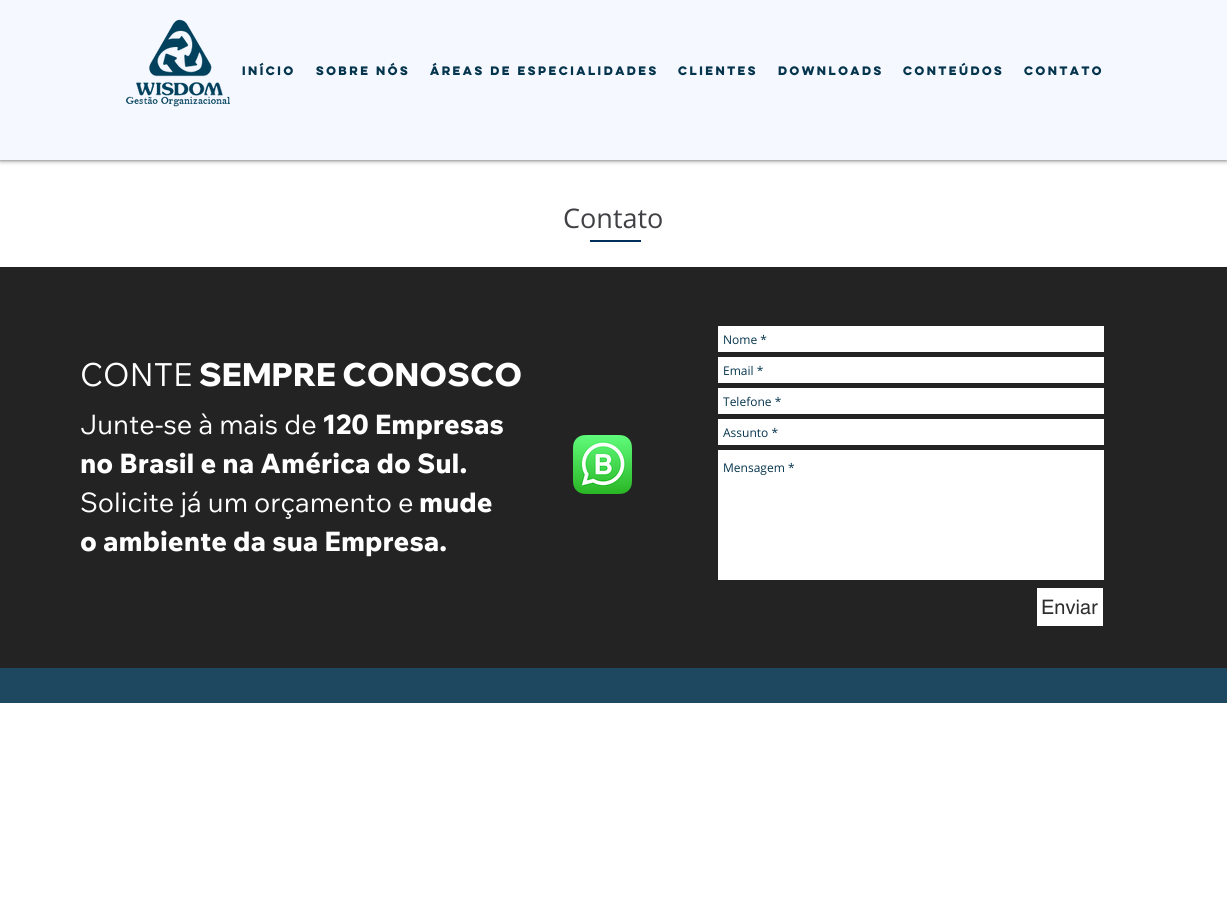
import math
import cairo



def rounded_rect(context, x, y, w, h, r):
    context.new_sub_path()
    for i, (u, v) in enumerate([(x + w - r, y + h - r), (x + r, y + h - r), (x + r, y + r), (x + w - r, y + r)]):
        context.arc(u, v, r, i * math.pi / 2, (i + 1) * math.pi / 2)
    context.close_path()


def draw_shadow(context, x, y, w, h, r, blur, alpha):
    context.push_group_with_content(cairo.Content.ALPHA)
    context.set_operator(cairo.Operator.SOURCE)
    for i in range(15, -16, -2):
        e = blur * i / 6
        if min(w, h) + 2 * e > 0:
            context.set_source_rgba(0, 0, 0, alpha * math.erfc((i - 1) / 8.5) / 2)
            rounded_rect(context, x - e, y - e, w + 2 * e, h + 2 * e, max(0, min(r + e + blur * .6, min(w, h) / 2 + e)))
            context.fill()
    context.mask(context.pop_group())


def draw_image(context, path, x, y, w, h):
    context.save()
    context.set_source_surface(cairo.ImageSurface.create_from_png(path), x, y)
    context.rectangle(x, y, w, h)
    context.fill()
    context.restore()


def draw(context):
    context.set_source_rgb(1, 1, 1)
    context.paint()
    context.set_source_rgb(0, 0, 0)
    draw_shadow(context, 0, 0, 1227, 160, 0, 2.5, 0.7)
    context.set_source_rgb(245 / 255, 248 / 255, 1)
    context.rectangle(0, 0, 1227, 160)
    context.fill()
    draw_image(context, "images/1.png", 126, 19, 105, 88)
    context.set_source_rgb(0, 46 / 255, 93 / 255)
    context.rectangle(590, 240, 51, 2)
    context.fill()
    context.set_source_rgb(36 / 255, 35 / 255, 35 / 255)
    context.rectangle(0, 267, 1227, 401)
    context.fill()
    context.set_source_rgb(1, 1, 1)
    context.rectangle(718, 326, 386, 26)
    context.fill()
    context.rectangle(718, 357, 386, 26)
    context.fill()
    context.rectangle(718, 388, 386, 26)
    context.fill()
    context.rectangle(718, 419, 386, 26)
    context.fill()
    context.rectangle(718, 450, 386, 130)
    context.fill()
    context.rectangle(1037, 588, 66, 38)
    context.fill()
    draw_image(context, "images/2.png", 573, 435, 59, 59)
    context.set_source_rgb(30 / 255, 72 / 255, 95 / 255)
    context.rectangle(0, 668, 1227, 35)
    context.fill()
    context.select_font_face("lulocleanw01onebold", cairo.FontSlant.NORMAL, cairo.FontWeight.BOLD)
    context.set_font_size(11)
    context.set_source_rgb(5 / 255, 52 / 255, 77 / 255)
    context.move_to(242, 75)
    context.show_text("Início")
    context.move_to(316, 75)
    context.show_text("Sobre Nós")
    context.move_to(430, 75)
    context.show_text("Áreas de Especialidades")
    context.move_to(678, 75)
    context.show_text("Clientes")
    context.move_to(778, 75)
    context.show_text("Downloads")
    context.move_to(903, 75)
    context.show_text("Conteúdos")
    context.move_to(1024, 75)
    context.show_text("Contato")
    context.select_font_face("Open Sans")
    context.set_font_size(27)
    context.set_source_rgb(64 / 255, 65 / 255, 68 / 255)
    context.move_to(563, 228)
    context.show_text("Contato")
    context.select_font_face("Wix Madefor Text")
    context.set_font_size(32)
    context.set_source_rgb(1, 1, 1)
    context.move_to(80, 386)
    context.show_text("CONTE")
    context.select_font_face("Wix Madefor Display ExtraBold")
    context.move_to(199, 386)
    context.show_text("SEMPRE CONOSCO")
    context.select_font_face("Open Sans")
    context.set_font_size(12)
    context.set_source_rgb(5 / 255, 52 / 255, 77 / 255)
    context.move_to(723, 344)
    context.show_text("Nome *")
    context.move_to(723, 375)
    context.show_text("Email *")
    context.move_to(723, 406)
    context.show_text("Telefone *")
    context.move_to(723, 437)
    context.show_text("Assunto *")
    context.move_to(723, 472)
    context.show_text("Mensagem *")
    context.select_font_face("helvetica")
    context.set_font_size(20)
    context.set_source_rgb(45 / 255, 45 / 255, 47 / 255)
    context.move_to(1041, 614)
    context.show_text("Enviar")
    context.select_font_face("Wix Madefor Text")
    context.set_font_size(27)
    context.set_source_rgb(1, 1, 1)
    context.move_to(80, 434)
    context.show_text("Junte-se à mais de")
    context.select_font_face("Wix Madefor Text ExtraBold")
    context.move_to(322, 434)
    context.show_text("120 Empresas")
    context.move_to(80, 473)
    context.show_text("no Brasil e na América do Sul.")
    context.select_font_face("Wix Madefor Text")
    context.move_to(80, 512)
    context.show_text("Solicite já um orçamento e")
    context.select_font_face("Wix Madefor Text ExtraBold")
    context.move_to(419, 512)
    context.show_text("mude")
    context.move_to(80, 551)
    context.show_text("o ambiente da sua Empresa.")


surface = cairo.ImageSurface(cairo.Format.RGB24, 1227, 903)
context = cairo.Context(surface)
options = cairo.FontOptions()
options.set_hint_metrics(cairo.HintMetrics.OFF)
options.set_hint_style(cairo.HintStyle.NONE)
context.set_font_options(options)
context.set_miter_limit(4)
draw(context)
surface.write_to_png("out.png")
